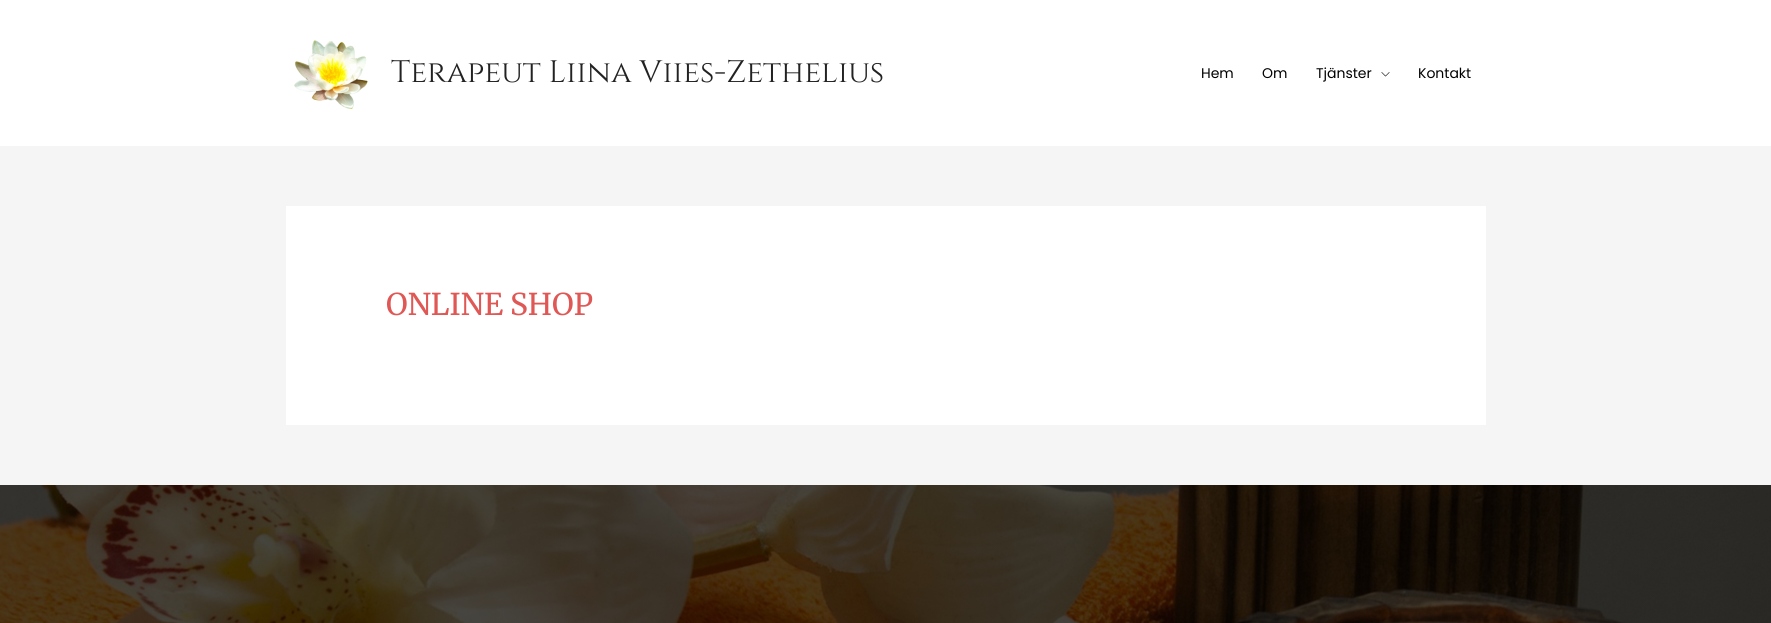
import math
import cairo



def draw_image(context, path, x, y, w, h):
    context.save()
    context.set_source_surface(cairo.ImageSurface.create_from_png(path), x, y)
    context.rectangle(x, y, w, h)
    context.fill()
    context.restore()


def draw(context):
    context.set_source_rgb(245 / 255, 245 / 255, 245 / 255)
    context.paint()
    context.set_source_rgb(1, 1, 1)
    context.rectangle(0, 0, 1771, 146)
    context.fill()
    draw_image(context, "images/1.png", 294, 40, 74, 69)
    draw_image(context, "images/2.png", 1381, 72, 9, 5)
    context.rectangle(286, 206, 1200, 219)
    context.fill()
    draw_image(context, "images/3.png", 0, 485, 1771, 138)
    context.select_font_face("Cinzel")
    context.set_font_size(31)
    context.set_source_rgb(34 / 255, 34 / 255, 34 / 255)
    context.move_to(391, 82)
    context.show_text("Terapeut Liina Viies-Zethelius")
    context.select_font_face("Poppins")
    context.set_font_size(14)
    context.set_source_rgb(0, 0, 0)
    context.move_to(1201, 78)
    context.show_text("Hem")
    context.move_to(1262, 78)
    context.show_text("Om")
    context.move_to(1316, 78)
    context.show_text("Tjänster")
    context.move_to(1418, 78)
    context.show_text("Kontakt")
    context.select_font_face("Merriweather Light")
    context.set_font_size(30)
    context.set_source_rgb(224 / 255, 88 / 255, 85 / 255)
    context.move_to(386, 315)
    context.show_text("ONLINE SHOP")


surface = cairo.ImageSurface(cairo.Format.RGB24, 1771, 623)
context = cairo.Context(surface)
options = cairo.FontOptions()
options.set_hint_metrics(cairo.HintMetrics.OFF)
options.set_hint_style(cairo.HintStyle.NONE)
context.set_font_options(options)
context.set_miter_limit(4)
draw(context)
surface.write_to_png("out.png")
